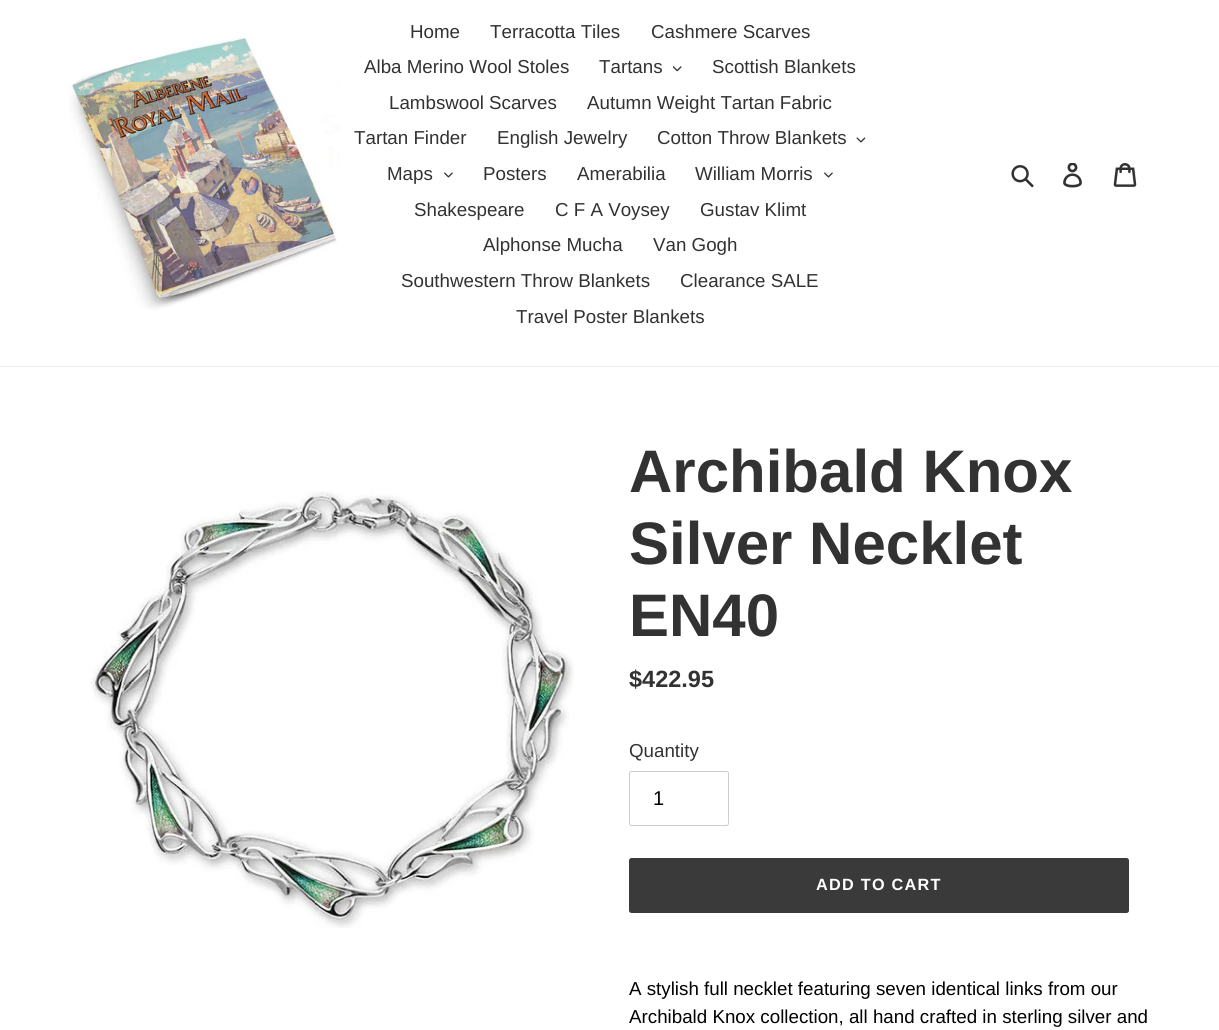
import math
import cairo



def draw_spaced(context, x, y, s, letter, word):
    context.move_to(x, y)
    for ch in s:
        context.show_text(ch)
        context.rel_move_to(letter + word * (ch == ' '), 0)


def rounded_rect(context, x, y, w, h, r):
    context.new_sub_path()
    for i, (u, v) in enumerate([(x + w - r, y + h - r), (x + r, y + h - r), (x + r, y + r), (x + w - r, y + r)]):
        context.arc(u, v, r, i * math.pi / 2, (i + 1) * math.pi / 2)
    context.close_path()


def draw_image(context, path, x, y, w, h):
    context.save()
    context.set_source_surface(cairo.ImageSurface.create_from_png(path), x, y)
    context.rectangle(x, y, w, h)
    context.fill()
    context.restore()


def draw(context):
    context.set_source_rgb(1, 1, 1)
    context.paint()
    context.set_source_rgb(235 / 255, 235 / 255, 235 / 255)
    context.rectangle(0, 366, 1219, 1)
    context.fill()
    draw_image(context, "images/1.png", 69, 37, 271, 273)
    draw_image(context, "images/2.png", 673, 66, 9, 6)
    draw_image(context, "images/3.png", 856, 137, 10, 6)
    draw_image(context, "images/4.png", 444, 172, 9, 6)
    draw_image(context, "images/4.png", 824, 172, 9, 6)
    draw_image(context, "images/5.png", 1011, 165, 23, 23)
    draw_image(context, "images/6.png", 1063, 163, 19, 25)
    draw_image(context, "images/7.png", 1113, 163, 24, 24)
    draw_image(context, "images/8.png", 90, 490, 484, 438)
    rounded_rect(context, 629.5, 771.5, 99, 54, 2)
    context.set_source_rgb(204 / 255, 204 / 255, 204 / 255)
    context.set_line_width(1)
    context.stroke()
    context.set_source_rgb(58 / 255, 58 / 255, 58 / 255)
    rounded_rect(context, 629, 858, 500, 55, 2.5)
    context.fill()
    context.select_font_face("Liberation Sans")
    context.set_font_size(18.75)
    context.set_source_rgb(51 / 255, 50 / 255, 50 / 255)
    context.move_to(410, 38)
    context.show_text("Home")
    context.move_to(490, 38)
    context.show_text("Terracotta Tiles")
    context.move_to(651, 38)
    context.show_text("Cashmere Scarves")
    context.move_to(364, 73)
    context.show_text("Alba Merino Wool Stoles")
    context.move_to(599, 73)
    context.show_text("Tartans")
    context.move_to(712, 73)
    context.show_text("Scottish Blankets")
    context.move_to(389, 109)
    context.show_text("Lambswool Scarves")
    context.move_to(587, 109)
    context.show_text("Autumn Weight Tartan Fabric")
    context.move_to(354, 144)
    context.show_text("Tartan Finder")
    context.move_to(497, 144)
    context.show_text("English Jewelry")
    context.move_to(657, 144)
    context.show_text("Cotton Throw Blankets")
    context.move_to(387, 180)
    context.show_text("Maps")
    context.move_to(483, 180)
    context.show_text("Posters")
    context.move_to(577, 180)
    context.show_text("Amerabilia")
    context.move_to(695, 180)
    context.show_text("William Morris")
    context.move_to(414, 216)
    context.show_text("Shakespeare")
    context.move_to(555, 216)
    context.show_text("C F A Voysey")
    context.move_to(700, 216)
    context.show_text("Gustav Klimt")
    context.move_to(483, 251)
    context.show_text("Alphonse Mucha")
    context.move_to(653, 251)
    context.show_text("Van Gogh")
    context.move_to(401, 287)
    context.show_text("Southwestern Throw Blankets")
    context.move_to(680, 287)
    context.show_text("Clearance SALE")
    context.move_to(516, 323)
    context.show_text("Travel Poster Blankets")
    context.select_font_face("Liberation Sans", cairo.FontSlant.NORMAL, cairo.FontWeight.BOLD)
    context.set_font_size(60)
    context.move_to(629, 492)
    context.show_text("Archibald Knox")
    context.move_to(629, 564)
    context.show_text("Silver Necklet")
    context.move_to(629, 636)
    context.show_text("EN40")
    context.set_font_size(23.5)
    context.move_to(629, 687)
    context.show_text("$422.95")
    context.select_font_face("Liberation Sans")
    context.set_font_size(18.75)
    context.move_to(629, 757)
    context.show_text("Quantity")
    context.set_font_size(20)
    context.set_source_rgb(0, 0, 0)
    context.move_to(653, 805)
    context.show_text("1")
    context.select_font_face("Liberation Sans", cairo.FontSlant.NORMAL, cairo.FontWeight.BOLD)
    context.set_font_size(16.25)
    context.set_source_rgb(1, 1, 1)
    draw_spaced(context, 816, 890, "ADD TO CART", 1.25, 0)
    context.select_font_face("Liberation Sans")
    context.set_font_size(18.75)
    context.set_source_rgb(0, 0, 0)
    context.move_to(629, 995)
    context.show_text("A stylish full necklet featuring seven identical links from our")
    context.move_to(629, 1023)
    context.show_text("Archibald Knox collection, all hand crafted in sterling silver and")


surface = cairo.ImageSurface(cairo.Format.RGB24, 1219, 1030)
context = cairo.Context(surface)
options = cairo.FontOptions()
options.set_hint_metrics(cairo.HintMetrics.OFF)
options.set_hint_style(cairo.HintStyle.NONE)
context.set_font_options(options)
context.set_miter_limit(4)
draw(context)
surface.write_to_png("out.png")
